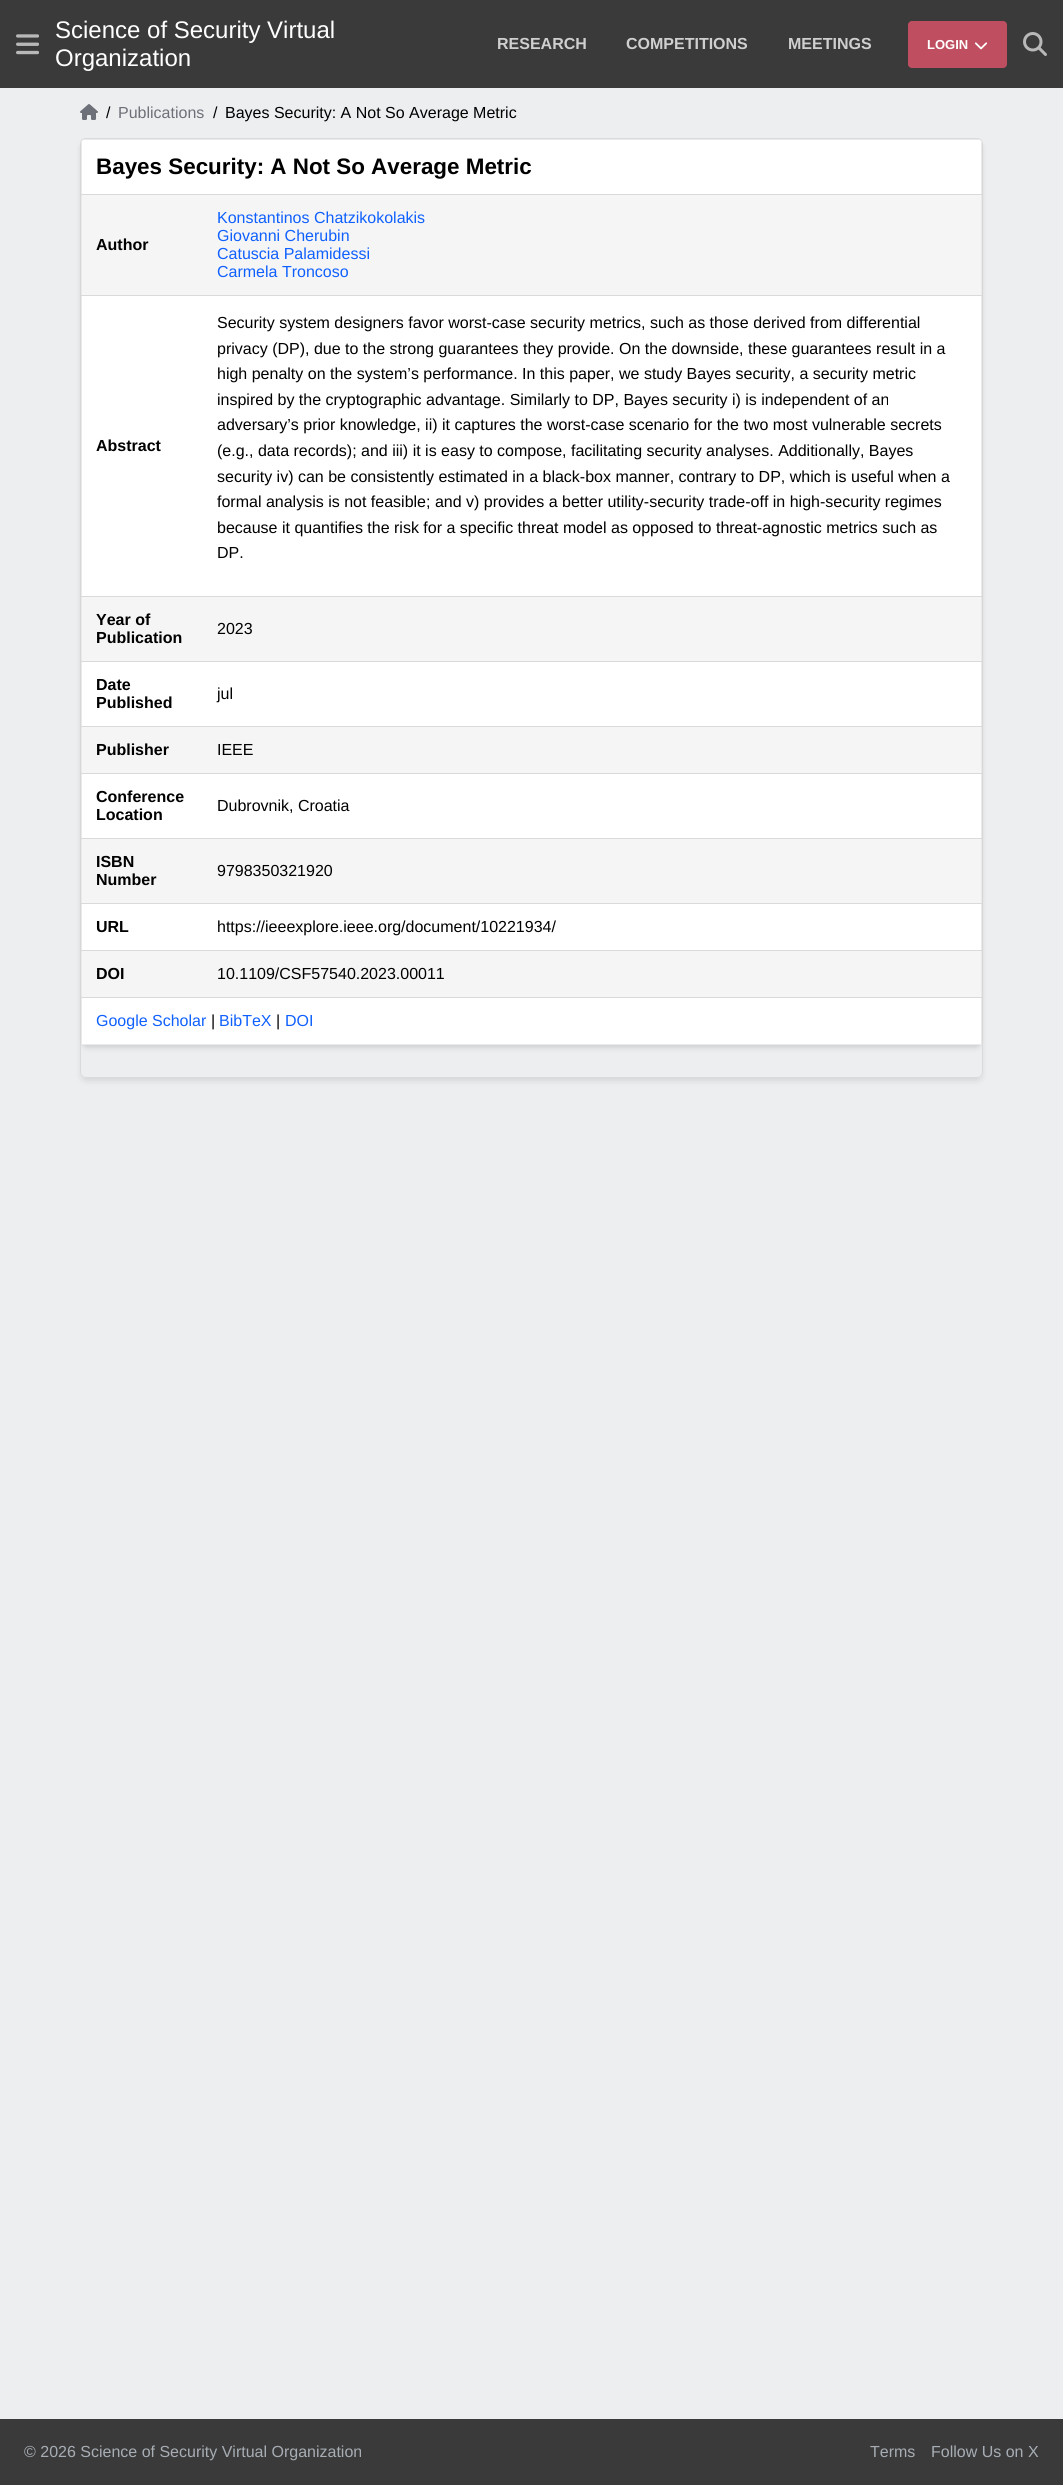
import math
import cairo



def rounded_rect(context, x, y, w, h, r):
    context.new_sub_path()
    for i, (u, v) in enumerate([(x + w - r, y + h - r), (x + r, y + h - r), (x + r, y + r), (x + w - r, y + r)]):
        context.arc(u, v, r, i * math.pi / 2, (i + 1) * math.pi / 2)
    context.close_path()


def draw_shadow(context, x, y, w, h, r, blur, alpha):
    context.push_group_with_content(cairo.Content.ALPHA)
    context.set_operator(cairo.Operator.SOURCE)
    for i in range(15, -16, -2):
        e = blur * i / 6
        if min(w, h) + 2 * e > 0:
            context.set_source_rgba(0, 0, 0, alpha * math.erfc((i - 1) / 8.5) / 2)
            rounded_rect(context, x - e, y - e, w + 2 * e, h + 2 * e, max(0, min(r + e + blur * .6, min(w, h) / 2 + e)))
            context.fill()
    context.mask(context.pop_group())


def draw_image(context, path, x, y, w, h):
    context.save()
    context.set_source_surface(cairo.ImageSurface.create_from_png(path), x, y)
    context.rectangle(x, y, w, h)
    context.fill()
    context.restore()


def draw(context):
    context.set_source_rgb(237 / 255, 238 / 255, 239 / 255)
    context.paint()
    context.set_source_rgb(59 / 255, 58 / 255, 58 / 255)
    context.rectangle(0, 0, 1063, 88)
    context.fill()
    draw_image(context, "images/1.png", 16, 34, 23, 21)
    context.set_source_rgb(191 / 255, 79 / 255, 96 / 255)
    rounded_rect(context, 908, 21, 99, 47, 4)
    context.fill()
    draw_image(context, "images/2.png", 974, 42, 14, 8)
    draw_image(context, "images/3.png", 1023, 32, 24, 24)
    draw_image(context, "images/4.png", 80, 104, 18, 16)
    context.save()
    context.set_fill_rule(cairo.FillRule.EVEN_ODD)
    context.new_path()
    context.move_to(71, 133)
    context.line_to(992, 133)
    context.line_to(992, 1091)
    context.line_to(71, 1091)
    context.close_path()
    context.move_to(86, 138)
    context.line_to(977, 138)
    context.curve_to(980.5, 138, 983, 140.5, 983, 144)
    context.line_to(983, 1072)
    context.curve_to(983, 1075.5, 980.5, 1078, 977, 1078)
    context.line_to(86, 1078)
    context.curve_to(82.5, 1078, 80, 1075.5, 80, 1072)
    context.line_to(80, 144)
    context.curve_to(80, 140.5, 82.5, 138, 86, 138)
    context.close_path()
    context.clip()
    context.set_source_rgb(0, 0, 0)
    draw_shadow(context, 81, 143, 901, 938, 5, 3, 0.1)
    context.restore()
    rounded_rect(context, 80.5, 138.5, 902, 939, 5.5)
    context.set_source_rgb(218 / 255, 218 / 255, 218 / 255)
    context.set_line_width(1)
    context.stroke()
    context.set_source_rgb(0, 0, 0)
    draw_shadow(context, 82, 142, 899, 904, 5, 2, 0.06)
    context.save()
    rounded_rect(context, 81, 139, 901, 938, 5)
    context.clip()
    draw_shadow(context, 82, 144, 899, 904, 5, 3, 0.1)
    context.restore()
    context.save()
    rounded_rect(context, 81, 139, 901, 938, 5)
    context.clip()
    context.set_source_rgb(1, 1, 1)
    rounded_rect(context, 81, 139, 901, 906, 6)
    context.fill()
    context.set_source_rgb(234 / 255, 234 / 255, 234 / 255)
    context.rectangle(81, 139, 901, 1)
    context.fill()
    context.set_source_rgb(1, 1, 1)
    context.rectangle(82, 140, 900, 54)
    context.fill()
    context.set_source_rgb(234 / 255, 234 / 255, 234 / 255)
    context.rectangle(981, 139, 1, 906)
    context.fill()
    context.restore()
    context.set_source_rgb(234 / 255, 234 / 255, 234 / 255)
    context.rectangle(81, 1044, 901, 1)
    context.fill()
    context.save()
    rounded_rect(context, 81, 139, 901, 938, 5)
    context.clip()
    context.rectangle(81, 139, 1, 906)
    context.fill()
    context.restore()
    context.set_source_rgb(218 / 255, 218 / 255, 218 / 255)
    context.rectangle(81, 194, 901, 1)
    context.fill()
    context.set_source_rgb(245 / 255, 245 / 255, 245 / 255)
    context.rectangle(82, 195, 899, 100)
    context.fill()
    context.set_source_rgb(218 / 255, 218 / 255, 218 / 255)
    context.rectangle(81, 295, 901, 1)
    context.fill()
    context.rectangle(81, 596, 901, 1)
    context.fill()
    context.set_source_rgb(245 / 255, 245 / 255, 245 / 255)
    context.rectangle(82, 597, 899, 64)
    context.fill()
    context.set_source_rgb(218 / 255, 218 / 255, 218 / 255)
    context.rectangle(81, 661, 901, 1)
    context.fill()
    context.rectangle(81, 726, 901, 1)
    context.fill()
    context.set_source_rgb(245 / 255, 245 / 255, 245 / 255)
    context.rectangle(82, 727, 899, 46)
    context.fill()
    context.set_source_rgb(218 / 255, 218 / 255, 218 / 255)
    context.rectangle(81, 773, 901, 1)
    context.fill()
    context.rectangle(81, 838, 901, 1)
    context.fill()
    context.set_source_rgb(245 / 255, 245 / 255, 245 / 255)
    context.rectangle(82, 839, 899, 64)
    context.fill()
    context.set_source_rgb(218 / 255, 218 / 255, 218 / 255)
    context.rectangle(81, 903, 901, 1)
    context.fill()
    context.rectangle(81, 950, 901, 1)
    context.fill()
    context.set_source_rgb(245 / 255, 245 / 255, 245 / 255)
    context.rectangle(82, 951, 899, 46)
    context.fill()
    context.set_source_rgb(218 / 255, 218 / 255, 218 / 255)
    context.rectangle(81, 997, 901, 1)
    context.fill()
    context.set_source_rgb(1, 1, 1)
    context.rectangle(82, 1042, 899, 2)
    context.fill()
    context.set_source_rgb(59 / 255, 58 / 255, 58 / 255)
    context.rectangle(0, 2419, 1063, 66)
    context.fill()
    context.select_font_face("Liberation Sans")
    context.set_font_size(24)
    context.set_source_rgb(1, 1, 1)
    context.move_to(55, 38)
    context.show_text("Science of Security Virtual")
    context.move_to(55, 66)
    context.show_text("Organization")
    context.select_font_face("Liberation Sans", cairo.FontSlant.NORMAL, cairo.FontWeight.BOLD)
    context.set_font_size(16)
    context.set_source_rgb(207 / 255, 207 / 255, 207 / 255)
    context.move_to(497, 49)
    context.show_text("RESEARCH")
    context.move_to(626, 49)
    context.show_text("COMPETITIONS")
    context.move_to(788, 49)
    context.show_text("MEETINGS")
    context.set_font_size(13)
    context.set_source_rgb(1, 1, 1)
    context.move_to(927, 49)
    context.show_text("LOGIN")
    context.select_font_face("Liberation Sans")
    context.set_font_size(16)
    context.set_source_rgb(0, 0, 0)
    context.move_to(106, 118)
    context.show_text("/")
    context.set_source_rgb(110 / 255, 112 / 255, 121 / 255)
    context.move_to(118, 118)
    context.show_text("Publications")
    context.set_source_rgb(0, 0, 0)
    context.move_to(213, 118)
    context.show_text("/")
    context.move_to(225, 118)
    context.show_text("Bayes Security: A Not So Average Metric")
    context.select_font_face("Liberation Sans", cairo.FontSlant.NORMAL, cairo.FontWeight.BOLD)
    context.set_font_size(22.4)
    context.move_to(96, 174)
    context.show_text("Bayes Security: A Not So Average Metric")
    context.set_font_size(16)
    context.move_to(96, 250)
    context.show_text("Author")
    context.select_font_face("Liberation Sans")
    context.set_source_rgb(15 / 255, 96 / 255, 1)
    context.move_to(217, 223)
    context.show_text("Konstantinos Chatzikokolakis")
    context.move_to(217, 241)
    context.show_text("Giovanni Cherubin")
    context.move_to(217, 259)
    context.show_text("Catuscia Palamidessi")
    context.move_to(217, 277)
    context.show_text("Carmela Troncoso")
    context.select_font_face("Liberation Sans", cairo.FontSlant.NORMAL, cairo.FontWeight.BOLD)
    context.set_source_rgb(0, 0, 0)
    context.move_to(96, 451)
    context.show_text("Abstract")
    context.select_font_face("Liberation Sans")
    context.move_to(217, 328)
    context.show_text("Security system designers favor worst-case security metrics, such as those derived from differential")
    context.move_to(217, 354)
    context.show_text("privacy (DP), due to the strong guarantees they provide. On the downside, these guarantees result in a")
    context.move_to(217, 379)
    context.show_text("high penalty on the system’s performance. In this paper, we study Bayes security, a security metric")
    context.move_to(217, 405)
    context.show_text("inspired by the cryptographic advantage. Similarly to DP, Bayes security i) is independent of an")
    context.move_to(217, 430)
    context.show_text("adversary’s prior knowledge, ii) it captures the worst-case scenario for the two most vulnerable secrets")
    context.move_to(217, 456)
    context.show_text("(e.g., data records); and iii) it is easy to compose, facilitating security analyses. Additionally, Bayes")
    context.move_to(217, 482)
    context.show_text("security iv) can be consistently estimated in a black-box manner, contrary to DP, which is useful when a")
    context.move_to(217, 507)
    context.show_text("formal analysis is not feasible; and v) provides a better utility-security trade-off in high-security regimes")
    context.move_to(217, 533)
    context.show_text("because it quantiﬁes the risk for a speciﬁc threat model as opposed to threat-agnostic metrics such as")
    context.move_to(217, 558)
    context.show_text("DP.")
    context.select_font_face("Liberation Sans", cairo.FontSlant.NORMAL, cairo.FontWeight.BOLD)
    context.move_to(96, 625)
    context.show_text("Year of")
    context.move_to(96, 643)
    context.show_text("Publication")
    context.select_font_face("Liberation Sans")
    context.move_to(217, 634)
    context.show_text("2023")
    context.select_font_face("Liberation Sans", cairo.FontSlant.NORMAL, cairo.FontWeight.BOLD)
    context.move_to(96, 690)
    context.show_text("Date")
    context.move_to(96, 708)
    context.show_text("Published")
    context.select_font_face("Liberation Sans")
    context.move_to(217, 699)
    context.show_text("jul")
    context.select_font_face("Liberation Sans", cairo.FontSlant.NORMAL, cairo.FontWeight.BOLD)
    context.move_to(96, 755)
    context.show_text("Publisher")
    context.select_font_face("Liberation Sans")
    context.move_to(217, 755)
    context.show_text("IEEE")
    context.select_font_face("Liberation Sans", cairo.FontSlant.NORMAL, cairo.FontWeight.BOLD)
    context.move_to(96, 802)
    context.show_text("Conference")
    context.move_to(96, 820)
    context.show_text("Location")
    context.select_font_face("Liberation Sans")
    context.move_to(217, 811)
    context.show_text("Dubrovnik, Croatia")
    context.select_font_face("Liberation Sans", cairo.FontSlant.NORMAL, cairo.FontWeight.BOLD)
    context.move_to(96, 867)
    context.show_text("ISBN")
    context.move_to(96, 885)
    context.show_text("Number")
    context.select_font_face("Liberation Sans")
    context.move_to(217, 876)
    context.show_text("9798350321920")
    context.select_font_face("Liberation Sans", cairo.FontSlant.NORMAL, cairo.FontWeight.BOLD)
    context.move_to(96, 932)
    context.show_text("URL")
    context.select_font_face("Liberation Sans")
    context.move_to(217, 932)
    context.show_text("https://ieeexplore.ieee.org/document/10221934/")
    context.select_font_face("Liberation Sans", cairo.FontSlant.NORMAL, cairo.FontWeight.BOLD)
    context.move_to(96, 979)
    context.show_text("DOI")
    context.select_font_face("Liberation Sans")
    context.move_to(217, 979)
    context.show_text("10.1109/CSF57540.2023.00011")
    context.set_source_rgb(15 / 255, 96 / 255, 1)
    context.move_to(96, 1026)
    context.show_text("Google Scholar")
    context.set_source_rgb(0, 0, 0)
    context.move_to(211, 1026)
    context.show_text("|")
    context.set_source_rgb(15 / 255, 96 / 255, 1)
    context.move_to(219, 1026)
    context.show_text("BibTeX")
    context.set_source_rgb(0, 0, 0)
    context.move_to(276, 1026)
    context.show_text("|")
    context.set_source_rgb(15 / 255, 96 / 255, 1)
    context.move_to(285, 1026)
    context.show_text("DOI")
    context.set_source_rgb(166 / 255, 173 / 255, 180 / 255)
    context.move_to(24, 2457)
    context.show_text("© 2026 Science of Security Virtual Organization")
    context.move_to(870, 2457)
    context.show_text("Terms")
    context.move_to(931, 2457)
    context.show_text("Follow Us on X")


surface = cairo.ImageSurface(cairo.Format.RGB24, 1063, 2485)
context = cairo.Context(surface)
options = cairo.FontOptions()
options.set_hint_metrics(cairo.HintMetrics.OFF)
options.set_hint_style(cairo.HintStyle.NONE)
context.set_font_options(options)
context.set_miter_limit(4)
draw(context)
surface.write_to_png("out.png")
